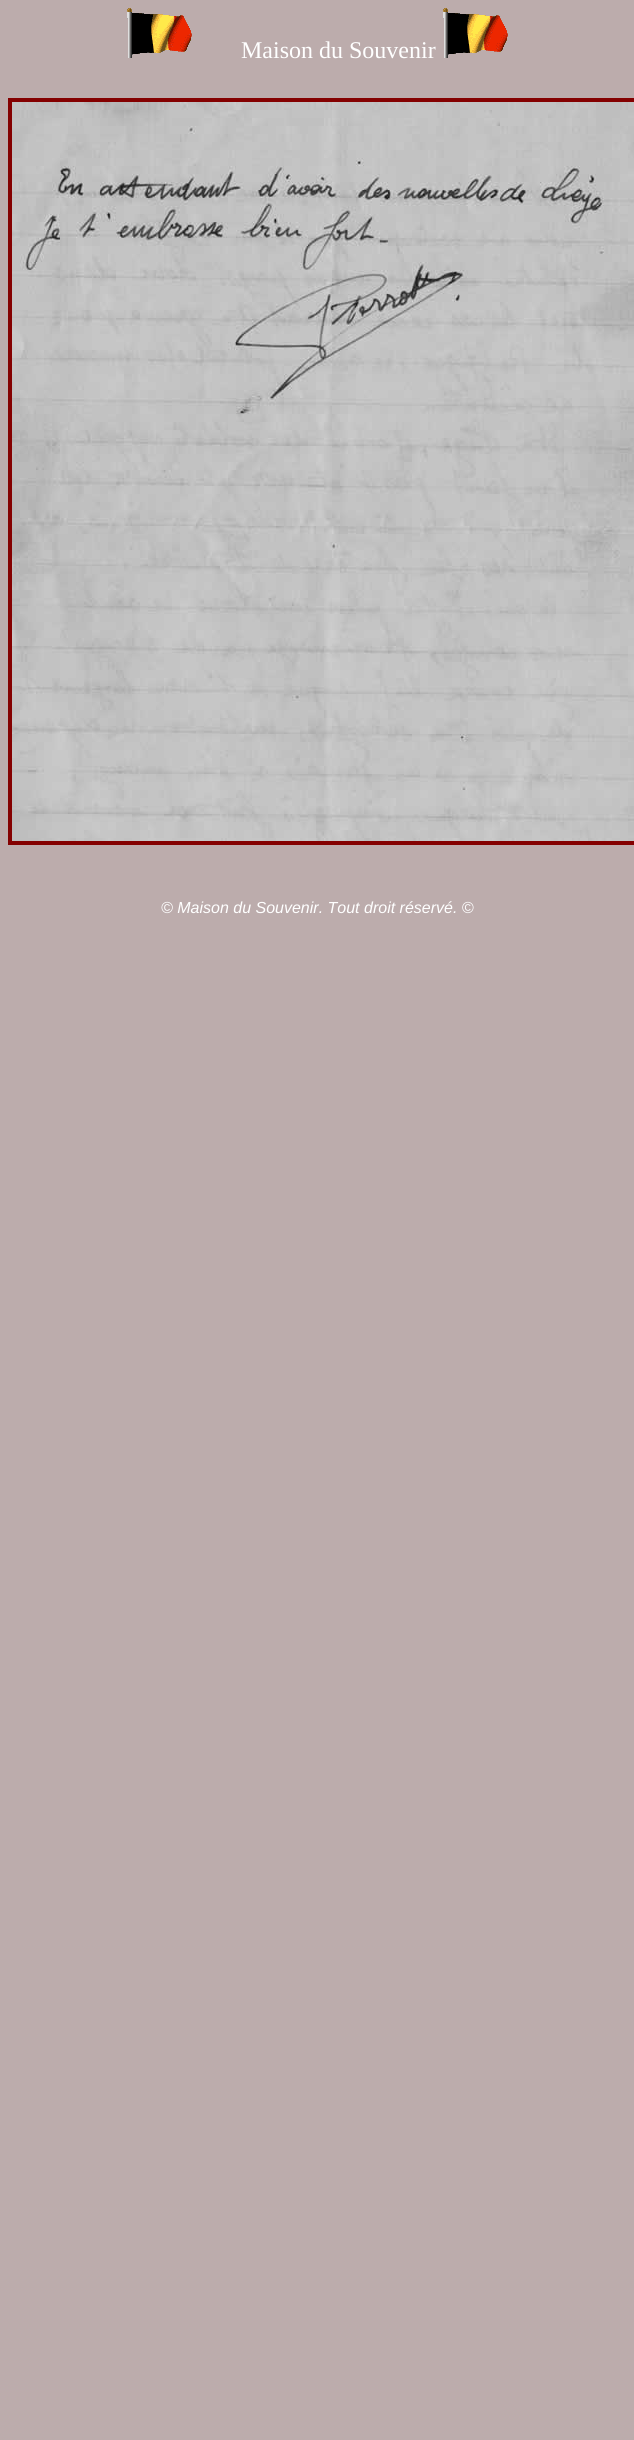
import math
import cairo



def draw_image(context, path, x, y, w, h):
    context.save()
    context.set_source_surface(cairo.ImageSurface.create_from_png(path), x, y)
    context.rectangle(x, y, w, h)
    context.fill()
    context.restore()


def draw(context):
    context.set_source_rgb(188 / 255, 172 / 255, 172 / 255)
    context.paint()
    draw_image(context, "images/1.png", 127, 8, 65, 50)
    draw_image(context, "images/1.png", 443, 8, 65, 50)
    context.rectangle(10, 100, 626, 743)
    context.set_source_rgb(132 / 255, 0, 0)
    context.set_line_width(4)
    context.stroke()
    draw_image(context, "images/2.png", 12, 102, 622, 739)
    context.select_font_face("Liberation Serif")
    context.set_font_size(24)
    context.set_source_rgb(1, 1, 1)
    context.move_to(241, 58)
    context.show_text("Maison du Souvenir")
    context.select_font_face("Liberation Sans", cairo.FontSlant.ITALIC)
    context.set_font_size(16)
    context.move_to(161, 913)
    context.show_text("© Maison du Souvenir. Tout droit réservé. ©")


surface = cairo.ImageSurface(cairo.Format.RGB24, 634, 2440)
context = cairo.Context(surface)
options = cairo.FontOptions()
options.set_hint_metrics(cairo.HintMetrics.OFF)
options.set_hint_style(cairo.HintStyle.NONE)
context.set_font_options(options)
context.set_miter_limit(4)
draw(context)
surface.write_to_png("out.png")
